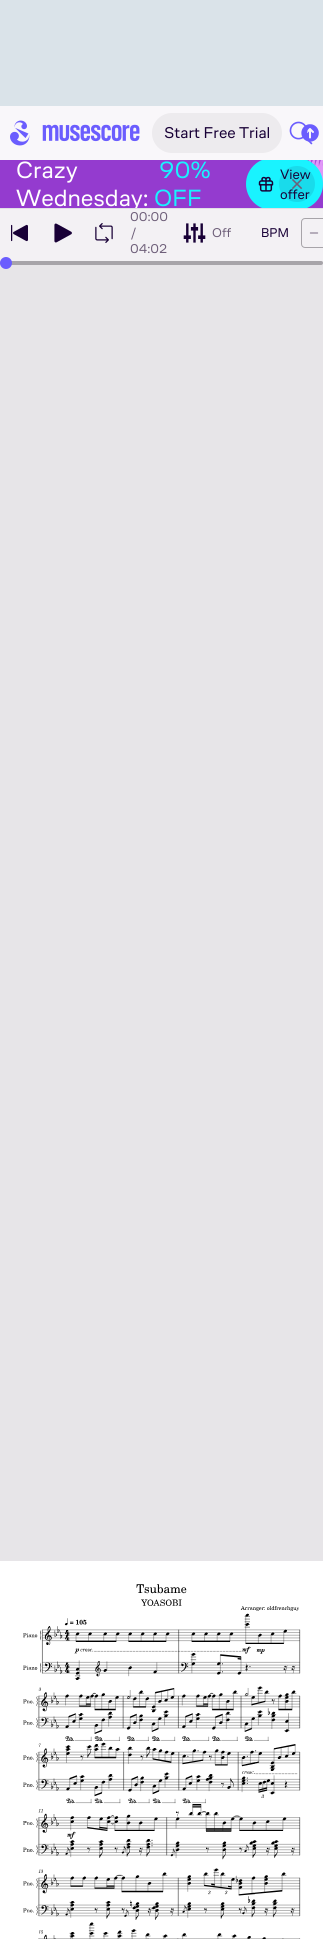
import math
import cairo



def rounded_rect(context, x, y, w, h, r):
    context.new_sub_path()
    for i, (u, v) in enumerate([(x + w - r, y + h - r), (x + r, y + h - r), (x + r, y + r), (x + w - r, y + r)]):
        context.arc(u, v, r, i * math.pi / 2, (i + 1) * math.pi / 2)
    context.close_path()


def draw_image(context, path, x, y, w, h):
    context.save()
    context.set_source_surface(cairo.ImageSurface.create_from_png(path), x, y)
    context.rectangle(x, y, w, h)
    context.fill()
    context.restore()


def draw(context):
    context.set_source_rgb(249 / 255, 247 / 255, 250 / 255)
    context.paint()
    context.set_source_rgb(226 / 255, 222 / 255, 230 / 255)
    context.rectangle(0, 208, 323, 1)
    context.fill()
    context.set_source_rgb(218 / 255, 227 / 255, 233 / 255)
    context.rectangle(0, 0, 323, 106)
    context.fill()
    draw_image(context, "images/1.png", 10, 120, 130, 26)
    context.set_source_rgb(237 / 255, 235 / 255, 238 / 255)
    rounded_rect(context, 152, 113, 130, 40, 20)
    context.fill()
    draw_image(context, "images/2.png", 301, 124, 18, 18)
    draw_image(context, "images/3.png", 289, 121, 24, 24)
    context.set_source_rgb(148 / 255, 59 / 255, 207 / 255)
    context.rectangle(0, 160, 323, 48)
    context.fill()
    draw_image(context, "images/4.png", 251, 160, 72, 41)
    context.set_source_rgb(243 / 255, 241 / 255, 244 / 255)
    context.rectangle(0, 209, 323, 52)
    context.fill()
    context.save()
    context.rectangle(0, 160, 323, 48)
    context.clip()
    context.set_source_rgb(25 / 255, 243 / 255, 1)
    rounded_rect(context, 246, 158, 77, 52, 26)
    context.fill()
    context.restore()
    draw_image(context, "images/5.png", 258, 176, 16, 16)
    context.set_source_rgba(24 / 255, 0, 54 / 255, 0.1)
    context.arc(297, 184, 18, 0, 2 * math.pi)
    context.fill()
    context.set_source_rgb(231 / 255, 229 / 255, 232 / 255)
    context.rectangle(0, 261, 323, 1300)
    context.fill()
    context.set_source_rgb(167 / 255, 164 / 255, 169 / 255)
    rounded_rect(context, 0, 261, 323, 4, 2)
    context.fill()
    context.set_source_rgb(107 / 255, 93 / 255, 254 / 255)
    context.arc(6, 263, 6, 0, 2 * math.pi)
    context.fill()
    draw_image(context, "images/7.png", 11, 224, 17, 18)
    draw_image(context, "images/8.png", 54, 223, 18, 20)
    draw_image(context, "images/9.png", 95, 223, 18, 20)
    draw_image(context, "images/10.png", 183, 223, 23, 20)
    rounded_rect(context, 301.5, 218.5, 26, 29, 3.5)
    context.set_source_rgb(167 / 255, 164 / 255, 169 / 255)
    context.set_line_width(1)
    context.stroke()
    draw_image(context, "images/11.png", 309, 232, 10, 2)
    context.set_source_rgb(1, 1, 1)
    context.rectangle(0, 1561, 323, 378)
    context.fill()
    draw_image(context, "images/12.png", 23, 1584, 278, 355)
    context.select_font_face("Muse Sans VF")
    context.set_font_size(16)
    context.set_source_rgb(24 / 255, 0, 54 / 255)
    context.move_to(164, 138)
    context.show_text("Start Free Trial")
    context.set_font_size(24)
    context.set_source_rgb(1, 1, 1)
    context.move_to(16, 178)
    context.show_text("Crazy")
    context.set_source_rgb(25 / 255, 243 / 255, 1)
    context.move_to(159, 178)
    context.show_text("90%")
    context.move_to(154, 206)
    context.show_text("OFF")
    context.save()
    context.rectangle(0, 160, 323, 48)
    context.clip()
    context.set_source_rgb(1, 1, 1)
    context.move_to(16, 206)
    context.show_text("Wednesday:")
    context.restore()
    context.set_font_size(14)
    context.set_source_rgb(24 / 255, 0, 54 / 255)
    context.move_to(280, 179)
    context.show_text("View")
    context.move_to(280, 199)
    context.show_text("offer")
    draw_image(context, "images/6.png", 291, 178, 12, 12)
    context.set_font_size(13)
    context.set_source_rgb(110 / 255, 95 / 255, 121 / 255)
    context.move_to(130, 221)
    context.show_text("00:00")
    context.move_to(130, 237)
    context.show_text("/")
    context.move_to(130, 253)
    context.show_text("04:02")
    context.move_to(212, 237)
    context.show_text("Off")
    context.set_source_rgb(24 / 255, 0, 54 / 255)
    context.move_to(261, 237)
    context.show_text("BPM")


surface = cairo.ImageSurface(cairo.Format.RGB24, 323, 1939)
context = cairo.Context(surface)
options = cairo.FontOptions()
options.set_hint_metrics(cairo.HintMetrics.OFF)
options.set_hint_style(cairo.HintStyle.NONE)
context.set_font_options(options)
context.set_miter_limit(4)
draw(context)
surface.write_to_png("out.png")
